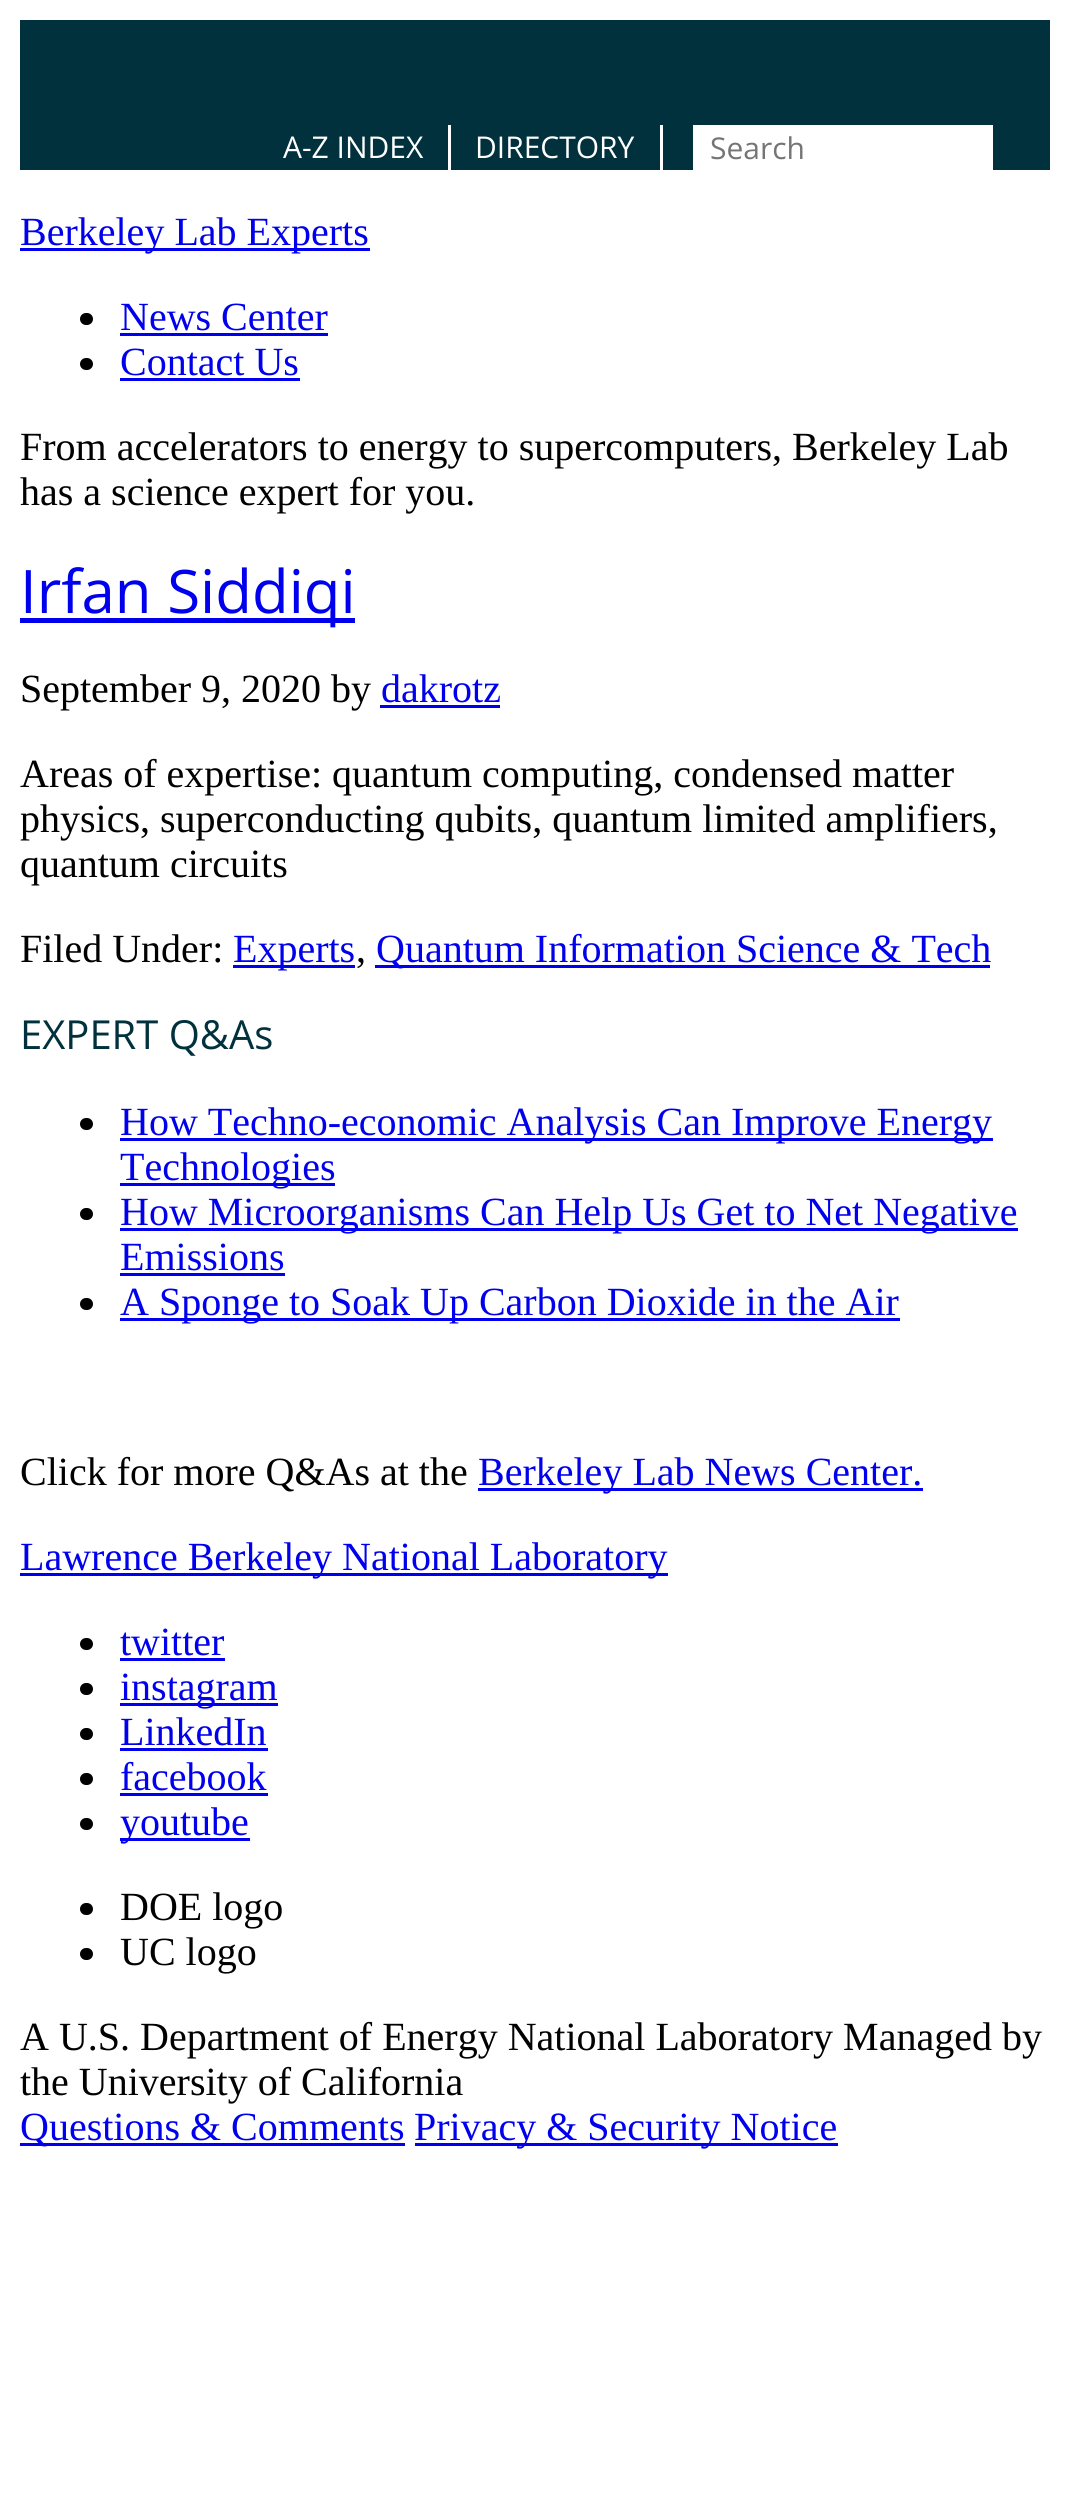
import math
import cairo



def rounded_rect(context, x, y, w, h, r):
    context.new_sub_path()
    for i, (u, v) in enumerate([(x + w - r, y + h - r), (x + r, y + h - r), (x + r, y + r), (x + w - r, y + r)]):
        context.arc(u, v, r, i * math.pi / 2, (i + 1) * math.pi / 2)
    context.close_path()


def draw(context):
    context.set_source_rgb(1, 1, 1)
    context.paint()
    context.set_source_rgb(0, 49 / 255, 60 / 255)
    context.rectangle(20, 20, 1030, 150)
    context.fill()
    context.set_source_rgb(1, 1, 1)
    context.rectangle(448, 125, 3, 45)
    context.fill()
    context.rectangle(660, 125, 3, 45)
    context.fill()
    context.rectangle(693, 125, 300, 45)
    context.fill()
    context.set_source_rgb(0, 0, 238 / 255)
    context.rectangle(20, 248, 350, 3)
    context.fill()
    context.set_source_rgb(0, 0, 0)
    rounded_rect(context, 80, 313, 13, 12, 6)
    context.fill()
    context.set_source_rgb(0, 0, 238 / 255)
    context.rectangle(120, 333, 208, 3)
    context.fill()
    context.set_source_rgb(0, 0, 0)
    rounded_rect(context, 80, 358, 13, 12, 6)
    context.fill()
    context.set_source_rgb(0, 0, 238 / 255)
    context.rectangle(120, 378, 180, 3)
    context.fill()
    context.rectangle(20, 618, 335, 5)
    context.fill()
    context.rectangle(380, 705, 120, 3)
    context.fill()
    context.rectangle(233, 965, 122, 3)
    context.fill()
    context.rectangle(375, 965, 615, 3)
    context.fill()
    context.set_source_rgb(0, 0, 0)
    rounded_rect(context, 80, 1118, 13, 12, 6)
    context.fill()
    context.set_source_rgb(0, 0, 238 / 255)
    context.rectangle(120, 1138, 873, 3)
    context.fill()
    context.rectangle(120, 1183, 215, 3)
    context.fill()
    context.set_source_rgb(0, 0, 0)
    rounded_rect(context, 80, 1208, 13, 12, 6)
    context.fill()
    context.set_source_rgb(0, 0, 238 / 255)
    context.rectangle(120, 1228, 898, 3)
    context.fill()
    context.rectangle(120, 1273, 165, 3)
    context.fill()
    context.set_source_rgb(0, 0, 0)
    rounded_rect(context, 80, 1298, 13, 12, 6)
    context.fill()
    context.set_source_rgb(0, 0, 238 / 255)
    context.rectangle(120, 1318, 780, 3)
    context.fill()
    context.rectangle(478, 1488, 445, 3)
    context.fill()
    context.rectangle(20, 1573, 648, 3)
    context.fill()
    context.set_source_rgb(0, 0, 0)
    rounded_rect(context, 80, 1638, 13, 12, 6)
    context.fill()
    context.set_source_rgb(0, 0, 238 / 255)
    context.rectangle(120, 1658, 105, 3)
    context.fill()
    context.set_source_rgb(0, 0, 0)
    rounded_rect(context, 80, 1683, 13, 12, 6)
    context.fill()
    context.set_source_rgb(0, 0, 238 / 255)
    context.rectangle(120, 1703, 158, 3)
    context.fill()
    context.set_source_rgb(0, 0, 0)
    rounded_rect(context, 80, 1728, 13, 12, 6)
    context.fill()
    context.set_source_rgb(0, 0, 238 / 255)
    context.rectangle(120, 1748, 148, 3)
    context.fill()
    context.set_source_rgb(0, 0, 0)
    rounded_rect(context, 80, 1773, 13, 12, 6)
    context.fill()
    context.set_source_rgb(0, 0, 238 / 255)
    context.rectangle(120, 1793, 148, 3)
    context.fill()
    context.set_source_rgb(0, 0, 0)
    rounded_rect(context, 80, 1818, 13, 12, 6)
    context.fill()
    context.set_source_rgb(0, 0, 238 / 255)
    context.rectangle(120, 1838, 130, 3)
    context.fill()
    context.set_source_rgb(0, 0, 0)
    rounded_rect(context, 80, 1903, 13, 12, 6)
    context.fill()
    rounded_rect(context, 80, 1948, 13, 12, 6)
    context.fill()
    context.set_source_rgb(0, 0, 238 / 255)
    context.rectangle(20, 2143, 385, 3)
    context.fill()
    context.rectangle(415, 2143, 423, 3)
    context.fill()
    context.select_font_face("Open Sans")
    context.set_font_size(30)
    context.set_source_rgb(1, 1, 1)
    context.move_to(283, 158)
    context.show_text("A-Z INDEX")
    context.move_to(475, 158)
    context.show_text("DIRECTORY")
    context.set_source_rgb(117 / 255, 117 / 255, 117 / 255)
    context.move_to(710, 159)
    context.show_text("Search")
    context.select_font_face("Liberation Serif")
    context.set_font_size(40)
    context.set_source_rgb(0, 0, 238 / 255)
    context.move_to(20, 245)
    context.show_text("Berkeley Lab Experts")
    context.move_to(120, 330)
    context.show_text("News Center")
    context.move_to(120, 375)
    context.show_text("Contact Us")
    context.set_source_rgb(0, 0, 0)
    context.move_to(20, 460)
    context.show_text("From accelerators to energy to supercomputers, Berkeley Lab")
    context.move_to(20, 505)
    context.show_text("has a science expert for you.")
    context.select_font_face("Open Sans")
    context.set_font_size(60)
    context.set_source_rgb(0, 0, 238 / 255)
    context.move_to(20, 613)
    context.show_text("Irfan Siddiqi")
    context.select_font_face("Liberation Serif")
    context.set_font_size(40)
    context.set_source_rgb(0, 0, 0)
    context.move_to(20, 702)
    context.show_text("September 9, 2020 by")
    context.set_source_rgb(0, 0, 238 / 255)
    context.move_to(381, 702)
    context.show_text("dakrotz")
    context.set_source_rgb(0, 0, 0)
    context.move_to(20, 787)
    context.show_text("Areas of expertise: quantum computing, condensed matter")
    context.move_to(20, 832)
    context.show_text("physics, superconducting qubits, quantum limited amplifiers,")
    context.move_to(20, 877)
    context.show_text("quantum circuits")
    context.move_to(20, 962)
    context.show_text("Filed Under:")
    context.set_source_rgb(0, 0, 238 / 255)
    context.move_to(233, 962)
    context.show_text("Experts")
    context.set_source_rgb(0, 0, 0)
    context.move_to(356, 962)
    context.show_text(",")
    context.set_source_rgb(0, 0, 238 / 255)
    context.move_to(376, 962)
    context.show_text("Quantum Information Science & Tech")
    context.select_font_face("Open Sans")
    context.set_source_rgb(1 / 255, 49 / 255, 60 / 255)
    context.move_to(20, 1049)
    context.show_text("EXPERT Q&As")
    context.select_font_face("Liberation Serif")
    context.set_source_rgb(0, 0, 238 / 255)
    context.move_to(120, 1135)
    context.show_text("How Techno-economic Analysis Can Improve Energy")
    context.move_to(120, 1180)
    context.show_text("Technologies")
    context.move_to(120, 1225)
    context.show_text("How Microorganisms Can Help Us Get to Net Negative")
    context.move_to(120, 1270)
    context.show_text("Emissions")
    context.move_to(120, 1315)
    context.show_text("A Sponge to Soak Up Carbon Dioxide in the Air")
    context.set_source_rgb(0, 0, 0)
    context.move_to(20, 1485)
    context.show_text("Click for more Q&As at the")
    context.set_source_rgb(0, 0, 238 / 255)
    context.move_to(478, 1485)
    context.show_text("Berkeley Lab News Center.")
    context.move_to(20, 1570)
    context.show_text("Lawrence Berkeley National Laboratory")
    context.move_to(120, 1655)
    context.show_text("twitter")
    context.move_to(120, 1700)
    context.show_text("instagram")
    context.move_to(120, 1745)
    context.show_text("LinkedIn")
    context.move_to(120, 1790)
    context.show_text("facebook")
    context.move_to(120, 1835)
    context.show_text("youtube")
    context.set_source_rgb(0, 0, 0)
    context.move_to(120, 1920)
    context.show_text("DOE logo")
    context.move_to(120, 1965)
    context.show_text("UC logo")
    context.move_to(20, 2050)
    context.show_text("A U.S. Department of Energy National Laboratory Managed by")
    context.move_to(20, 2095)
    context.show_text("the University of California")
    context.set_source_rgb(0, 0, 238 / 255)
    context.move_to(20, 2140)
    context.show_text("Questions & Comments")
    context.move_to(414, 2140)
    context.show_text("Privacy & Security Notice")


surface = cairo.ImageSurface(cairo.Format.RGB24, 1069, 2504)
context = cairo.Context(surface)
options = cairo.FontOptions()
options.set_hint_metrics(cairo.HintMetrics.OFF)
options.set_hint_style(cairo.HintStyle.NONE)
context.set_font_options(options)
context.set_miter_limit(4)
draw(context)
surface.write_to_png("out.png")
